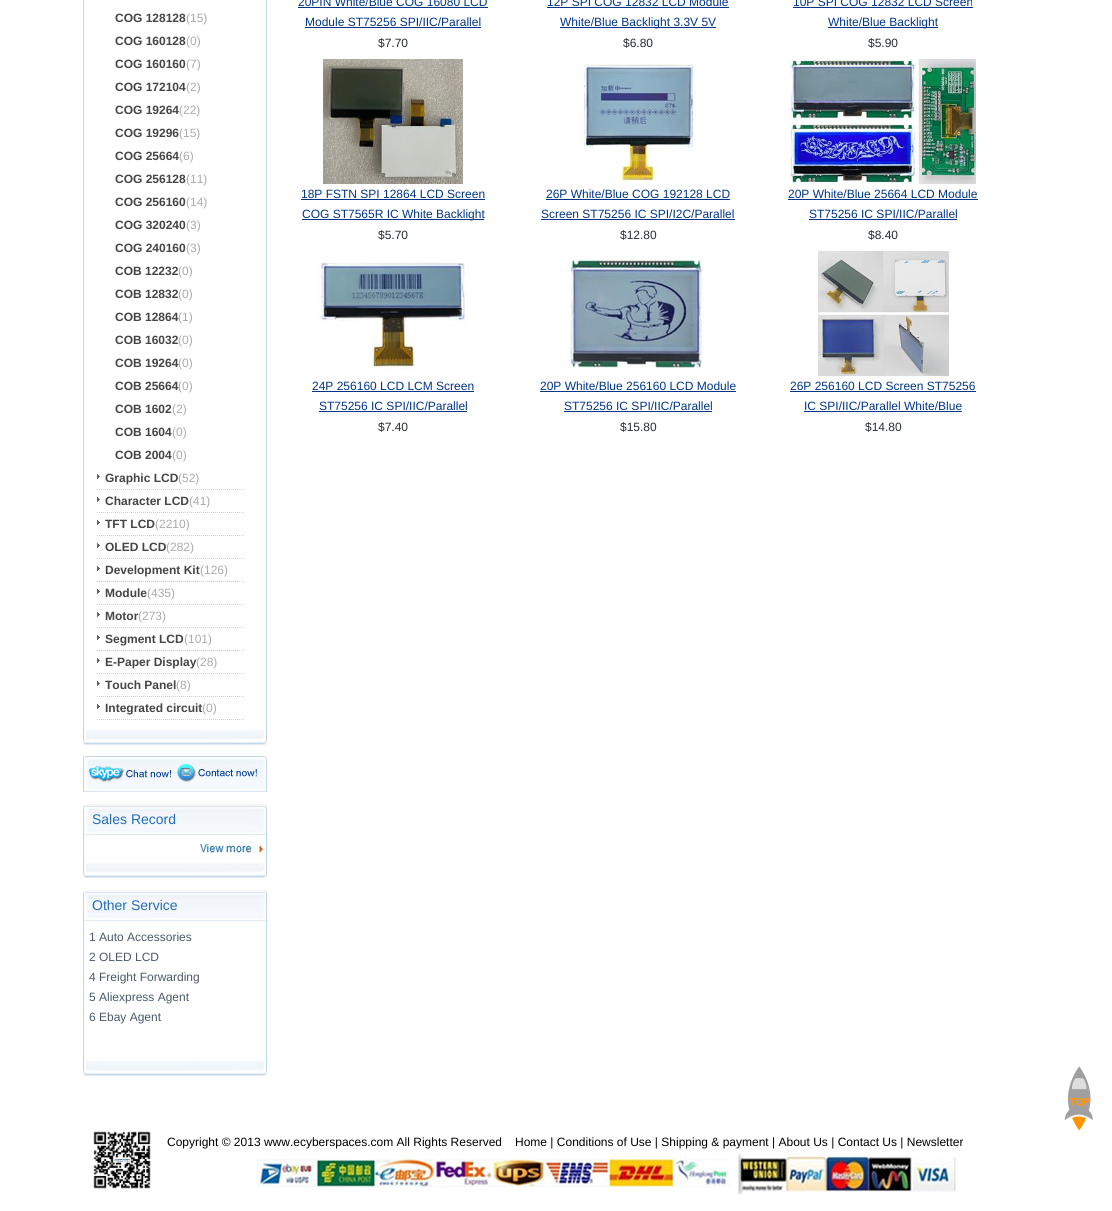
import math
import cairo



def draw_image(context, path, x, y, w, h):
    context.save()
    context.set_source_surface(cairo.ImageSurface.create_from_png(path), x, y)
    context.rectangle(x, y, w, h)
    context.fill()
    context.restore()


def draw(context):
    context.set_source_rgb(1, 1, 1)
    context.paint()
    draw_image(context, "images/1.png", 83, 0, 184, 726)
    draw_image(context, "images/2.png", 97, 474, 147, 16)
    draw_image(context, "images/2.png", 97, 497, 147, 16)
    draw_image(context, "images/2.png", 97, 520, 147, 16)
    draw_image(context, "images/2.png", 97, 543, 147, 16)
    draw_image(context, "images/2.png", 97, 566, 147, 16)
    draw_image(context, "images/2.png", 97, 589, 147, 16)
    draw_image(context, "images/2.png", 97, 612, 147, 16)
    draw_image(context, "images/2.png", 97, 635, 147, 16)
    draw_image(context, "images/2.png", 97, 658, 147, 16)
    draw_image(context, "images/2.png", 97, 681, 147, 16)
    draw_image(context, "images/2.png", 97, 704, 147, 16)
    draw_image(context, "images/3.png", 83, 726, 184, 19)
    draw_image(context, "images/4.png", 83, 756, 184, 36)
    draw_image(context, "images/5.png", 89, 765, 82, 17)
    draw_image(context, "images/6.png", 177, 764, 80, 18)
    draw_image(context, "images/7.png", 83, 804, 184, 31)
    draw_image(context, "images/8.png", 83, 835, 184, 24)
    draw_image(context, "images/9.png", 200, 844, 64, 9)
    draw_image(context, "images/3.png", 83, 859, 184, 19)
    draw_image(context, "images/7.png", 83, 890, 184, 31)
    draw_image(context, "images/10.png", 83, 921, 184, 136)
    draw_image(context, "images/3.png", 83, 1057, 184, 19)
    context.set_source_rgb(0, 53 / 255, 134 / 255)
    context.rectangle(298, 7, 190, 1)
    context.fill()
    context.rectangle(305, 27, 176, 1)
    context.fill()
    context.rectangle(547, 7, 182, 1)
    context.fill()
    context.rectangle(560, 27, 156, 1)
    context.fill()
    context.rectangle(793, 7, 180, 1)
    context.fill()
    context.rectangle(828, 27, 110, 1)
    context.fill()
    draw_image(context, "images/11.png", 323, 59, 140, 125)
    context.rectangle(301, 199, 184, 1)
    context.fill()
    context.rectangle(302, 219, 182, 1)
    context.fill()
    draw_image(context, "images/12.png", 579, 63, 117, 119)
    context.rectangle(546, 199, 184, 1)
    context.fill()
    context.rectangle(541, 219, 194, 1)
    context.fill()
    draw_image(context, "images/13.png", 790, 59, 186, 125)
    context.rectangle(788, 199, 190, 1)
    context.fill()
    context.rectangle(809, 219, 148, 1)
    context.fill()
    draw_image(context, "images/14.png", 317, 262, 152, 109)
    context.rectangle(312, 391, 162, 1)
    context.fill()
    context.rectangle(319, 411, 148, 1)
    context.fill()
    draw_image(context, "images/15.png", 567, 254, 137, 114)
    context.rectangle(540, 391, 196, 1)
    context.fill()
    context.rectangle(564, 411, 148, 1)
    context.fill()
    draw_image(context, "images/16.png", 818, 251, 131, 125)
    context.rectangle(790, 391, 186, 1)
    context.fill()
    context.rectangle(804, 411, 158, 1)
    context.fill()
    draw_image(context, "images/17.png", 1064, 1066, 29, 65)
    draw_image(context, "images/18.png", 93, 1131, 58, 58)
    draw_image(context, "images/19.png", 257, 1154, 699, 40)
    context.select_font_face("Liberation Sans", cairo.FontSlant.NORMAL, cairo.FontWeight.BOLD)
    context.set_font_size(12)
    context.set_source_rgb(69 / 255, 69 / 255, 69 / 255)
    context.move_to(115, 22)
    context.show_text("COG 128128")
    context.select_font_face("Liberation Sans")
    context.set_source_rgb(170 / 255, 170 / 255, 170 / 255)
    context.move_to(186, 22)
    context.show_text("(15)")
    context.select_font_face("Liberation Sans", cairo.FontSlant.NORMAL, cairo.FontWeight.BOLD)
    context.set_source_rgb(69 / 255, 69 / 255, 69 / 255)
    context.move_to(115, 45)
    context.show_text("COG 160128")
    context.select_font_face("Liberation Sans")
    context.set_source_rgb(170 / 255, 170 / 255, 170 / 255)
    context.move_to(186, 45)
    context.show_text("(0)")
    context.select_font_face("Liberation Sans", cairo.FontSlant.NORMAL, cairo.FontWeight.BOLD)
    context.set_source_rgb(69 / 255, 69 / 255, 69 / 255)
    context.move_to(115, 68)
    context.show_text("COG 160160")
    context.select_font_face("Liberation Sans")
    context.set_source_rgb(170 / 255, 170 / 255, 170 / 255)
    context.move_to(186, 68)
    context.show_text("(7)")
    context.select_font_face("Liberation Sans", cairo.FontSlant.NORMAL, cairo.FontWeight.BOLD)
    context.set_source_rgb(69 / 255, 69 / 255, 69 / 255)
    context.move_to(115, 91)
    context.show_text("COG 172104")
    context.select_font_face("Liberation Sans")
    context.set_source_rgb(170 / 255, 170 / 255, 170 / 255)
    context.move_to(186, 91)
    context.show_text("(2)")
    context.select_font_face("Liberation Sans", cairo.FontSlant.NORMAL, cairo.FontWeight.BOLD)
    context.set_source_rgb(69 / 255, 69 / 255, 69 / 255)
    context.move_to(115, 114)
    context.show_text("COG 19264")
    context.select_font_face("Liberation Sans")
    context.set_source_rgb(170 / 255, 170 / 255, 170 / 255)
    context.move_to(179, 114)
    context.show_text("(22)")
    context.select_font_face("Liberation Sans", cairo.FontSlant.NORMAL, cairo.FontWeight.BOLD)
    context.set_source_rgb(69 / 255, 69 / 255, 69 / 255)
    context.move_to(115, 137)
    context.show_text("COG 19296")
    context.select_font_face("Liberation Sans")
    context.set_source_rgb(170 / 255, 170 / 255, 170 / 255)
    context.move_to(179, 137)
    context.show_text("(15)")
    context.select_font_face("Liberation Sans", cairo.FontSlant.NORMAL, cairo.FontWeight.BOLD)
    context.set_source_rgb(69 / 255, 69 / 255, 69 / 255)
    context.move_to(115, 160)
    context.show_text("COG 25664")
    context.select_font_face("Liberation Sans")
    context.set_source_rgb(170 / 255, 170 / 255, 170 / 255)
    context.move_to(179, 160)
    context.show_text("(6)")
    context.select_font_face("Liberation Sans", cairo.FontSlant.NORMAL, cairo.FontWeight.BOLD)
    context.set_source_rgb(69 / 255, 69 / 255, 69 / 255)
    context.move_to(115, 183)
    context.show_text("COG 256128")
    context.select_font_face("Liberation Sans")
    context.set_source_rgb(170 / 255, 170 / 255, 170 / 255)
    context.move_to(186, 183)
    context.show_text("(11)")
    context.select_font_face("Liberation Sans", cairo.FontSlant.NORMAL, cairo.FontWeight.BOLD)
    context.set_source_rgb(69 / 255, 69 / 255, 69 / 255)
    context.move_to(115, 206)
    context.show_text("COG 256160")
    context.select_font_face("Liberation Sans")
    context.set_source_rgb(170 / 255, 170 / 255, 170 / 255)
    context.move_to(186, 206)
    context.show_text("(14)")
    context.select_font_face("Liberation Sans", cairo.FontSlant.NORMAL, cairo.FontWeight.BOLD)
    context.set_source_rgb(69 / 255, 69 / 255, 69 / 255)
    context.move_to(115, 229)
    context.show_text("COG 320240")
    context.select_font_face("Liberation Sans")
    context.set_source_rgb(170 / 255, 170 / 255, 170 / 255)
    context.move_to(186, 229)
    context.show_text("(3)")
    context.select_font_face("Liberation Sans", cairo.FontSlant.NORMAL, cairo.FontWeight.BOLD)
    context.set_source_rgb(69 / 255, 69 / 255, 69 / 255)
    context.move_to(115, 252)
    context.show_text("COG 240160")
    context.select_font_face("Liberation Sans")
    context.set_source_rgb(170 / 255, 170 / 255, 170 / 255)
    context.move_to(186, 252)
    context.show_text("(3)")
    context.select_font_face("Liberation Sans", cairo.FontSlant.NORMAL, cairo.FontWeight.BOLD)
    context.set_source_rgb(69 / 255, 69 / 255, 69 / 255)
    context.move_to(115, 275)
    context.show_text("COB 12232")
    context.select_font_face("Liberation Sans")
    context.set_source_rgb(170 / 255, 170 / 255, 170 / 255)
    context.move_to(178, 275)
    context.show_text("(0)")
    context.select_font_face("Liberation Sans", cairo.FontSlant.NORMAL, cairo.FontWeight.BOLD)
    context.set_source_rgb(69 / 255, 69 / 255, 69 / 255)
    context.move_to(115, 298)
    context.show_text("COB 12832")
    context.select_font_face("Liberation Sans")
    context.set_source_rgb(170 / 255, 170 / 255, 170 / 255)
    context.move_to(178, 298)
    context.show_text("(0)")
    context.select_font_face("Liberation Sans", cairo.FontSlant.NORMAL, cairo.FontWeight.BOLD)
    context.set_source_rgb(69 / 255, 69 / 255, 69 / 255)
    context.move_to(115, 321)
    context.show_text("COB 12864")
    context.select_font_face("Liberation Sans")
    context.set_source_rgb(170 / 255, 170 / 255, 170 / 255)
    context.move_to(178, 321)
    context.show_text("(1)")
    context.select_font_face("Liberation Sans", cairo.FontSlant.NORMAL, cairo.FontWeight.BOLD)
    context.set_source_rgb(69 / 255, 69 / 255, 69 / 255)
    context.move_to(115, 344)
    context.show_text("COB 16032")
    context.select_font_face("Liberation Sans")
    context.set_source_rgb(170 / 255, 170 / 255, 170 / 255)
    context.move_to(178, 344)
    context.show_text("(0)")
    context.select_font_face("Liberation Sans", cairo.FontSlant.NORMAL, cairo.FontWeight.BOLD)
    context.set_source_rgb(69 / 255, 69 / 255, 69 / 255)
    context.move_to(115, 367)
    context.show_text("COB 19264")
    context.select_font_face("Liberation Sans")
    context.set_source_rgb(170 / 255, 170 / 255, 170 / 255)
    context.move_to(178, 367)
    context.show_text("(0)")
    context.select_font_face("Liberation Sans", cairo.FontSlant.NORMAL, cairo.FontWeight.BOLD)
    context.set_source_rgb(69 / 255, 69 / 255, 69 / 255)
    context.move_to(115, 390)
    context.show_text("COB 25664")
    context.select_font_face("Liberation Sans")
    context.set_source_rgb(170 / 255, 170 / 255, 170 / 255)
    context.move_to(178, 390)
    context.show_text("(0)")
    context.select_font_face("Liberation Sans", cairo.FontSlant.NORMAL, cairo.FontWeight.BOLD)
    context.set_source_rgb(69 / 255, 69 / 255, 69 / 255)
    context.move_to(115, 413)
    context.show_text("COB 1602")
    context.select_font_face("Liberation Sans")
    context.set_source_rgb(170 / 255, 170 / 255, 170 / 255)
    context.move_to(172, 413)
    context.show_text("(2)")
    context.select_font_face("Liberation Sans", cairo.FontSlant.NORMAL, cairo.FontWeight.BOLD)
    context.set_source_rgb(69 / 255, 69 / 255, 69 / 255)
    context.move_to(115, 436)
    context.show_text("COB 1604")
    context.select_font_face("Liberation Sans")
    context.set_source_rgb(170 / 255, 170 / 255, 170 / 255)
    context.move_to(172, 436)
    context.show_text("(0)")
    context.select_font_face("Liberation Sans", cairo.FontSlant.NORMAL, cairo.FontWeight.BOLD)
    context.set_source_rgb(69 / 255, 69 / 255, 69 / 255)
    context.move_to(115, 459)
    context.show_text("COB 2004")
    context.select_font_face("Liberation Sans")
    context.set_source_rgb(170 / 255, 170 / 255, 170 / 255)
    context.move_to(172, 459)
    context.show_text("(0)")
    context.select_font_face("Liberation Sans", cairo.FontSlant.NORMAL, cairo.FontWeight.BOLD)
    context.set_source_rgb(69 / 255, 69 / 255, 69 / 255)
    context.move_to(105, 482)
    context.show_text("Graphic LCD")
    context.select_font_face("Liberation Sans")
    context.set_source_rgb(170 / 255, 170 / 255, 170 / 255)
    context.move_to(178, 482)
    context.show_text("(52)")
    context.select_font_face("Liberation Sans", cairo.FontSlant.NORMAL, cairo.FontWeight.BOLD)
    context.set_source_rgb(69 / 255, 69 / 255, 69 / 255)
    context.move_to(105, 505)
    context.show_text("Character LCD")
    context.select_font_face("Liberation Sans")
    context.set_source_rgb(170 / 255, 170 / 255, 170 / 255)
    context.move_to(189, 505)
    context.show_text("(41)")
    context.select_font_face("Liberation Sans", cairo.FontSlant.NORMAL, cairo.FontWeight.BOLD)
    context.set_source_rgb(69 / 255, 69 / 255, 69 / 255)
    context.move_to(105, 528)
    context.show_text("TFT LCD")
    context.select_font_face("Liberation Sans")
    context.set_source_rgb(170 / 255, 170 / 255, 170 / 255)
    context.move_to(155, 528)
    context.show_text("(2210)")
    context.select_font_face("Liberation Sans", cairo.FontSlant.NORMAL, cairo.FontWeight.BOLD)
    context.set_source_rgb(69 / 255, 69 / 255, 69 / 255)
    context.move_to(105, 551)
    context.show_text("OLED LCD")
    context.select_font_face("Liberation Sans")
    context.set_source_rgb(170 / 255, 170 / 255, 170 / 255)
    context.move_to(166, 551)
    context.show_text("(282)")
    context.select_font_face("Liberation Sans", cairo.FontSlant.NORMAL, cairo.FontWeight.BOLD)
    context.set_source_rgb(69 / 255, 69 / 255, 69 / 255)
    context.move_to(105, 574)
    context.show_text("Development Kit")
    context.select_font_face("Liberation Sans")
    context.set_source_rgb(170 / 255, 170 / 255, 170 / 255)
    context.move_to(200, 574)
    context.show_text("(126)")
    context.select_font_face("Liberation Sans", cairo.FontSlant.NORMAL, cairo.FontWeight.BOLD)
    context.set_source_rgb(69 / 255, 69 / 255, 69 / 255)
    context.move_to(105, 597)
    context.show_text("Module")
    context.select_font_face("Liberation Sans")
    context.set_source_rgb(170 / 255, 170 / 255, 170 / 255)
    context.move_to(147, 597)
    context.show_text("(435)")
    context.select_font_face("Liberation Sans", cairo.FontSlant.NORMAL, cairo.FontWeight.BOLD)
    context.set_source_rgb(69 / 255, 69 / 255, 69 / 255)
    context.move_to(105, 620)
    context.show_text("Motor")
    context.select_font_face("Liberation Sans")
    context.set_source_rgb(170 / 255, 170 / 255, 170 / 255)
    context.move_to(138, 620)
    context.show_text("(273)")
    context.select_font_face("Liberation Sans", cairo.FontSlant.NORMAL, cairo.FontWeight.BOLD)
    context.set_source_rgb(69 / 255, 69 / 255, 69 / 255)
    context.move_to(105, 643)
    context.show_text("Segment LCD")
    context.select_font_face("Liberation Sans")
    context.set_source_rgb(170 / 255, 170 / 255, 170 / 255)
    context.move_to(184, 643)
    context.show_text("(101)")
    context.select_font_face("Liberation Sans", cairo.FontSlant.NORMAL, cairo.FontWeight.BOLD)
    context.set_source_rgb(69 / 255, 69 / 255, 69 / 255)
    context.move_to(105, 666)
    context.show_text("E-Paper Display")
    context.select_font_face("Liberation Sans")
    context.set_source_rgb(170 / 255, 170 / 255, 170 / 255)
    context.move_to(196, 666)
    context.show_text("(28)")
    context.select_font_face("Liberation Sans", cairo.FontSlant.NORMAL, cairo.FontWeight.BOLD)
    context.set_source_rgb(69 / 255, 69 / 255, 69 / 255)
    context.move_to(105, 689)
    context.show_text("Touch Panel")
    context.select_font_face("Liberation Sans")
    context.set_source_rgb(170 / 255, 170 / 255, 170 / 255)
    context.move_to(176, 689)
    context.show_text("(8)")
    context.select_font_face("Liberation Sans", cairo.FontSlant.NORMAL, cairo.FontWeight.BOLD)
    context.set_source_rgb(69 / 255, 69 / 255, 69 / 255)
    context.move_to(105, 712)
    context.show_text("Integrated circuit")
    context.select_font_face("Liberation Sans")
    context.set_source_rgb(170 / 255, 170 / 255, 170 / 255)
    context.move_to(202, 712)
    context.show_text("(0)")
    context.set_font_size(14)
    context.set_source_rgb(37 / 255, 108 / 255, 183 / 255)
    context.move_to(92, 824)
    context.show_text("Sales Record")
    context.move_to(92, 910)
    context.show_text("Other Service")
    context.set_font_size(12)
    context.set_source_rgb(75 / 255, 89 / 255, 106 / 255)
    context.move_to(89, 941)
    context.show_text("1 Auto Accessories")
    context.move_to(89, 961)
    context.show_text("2 OLED LCD")
    context.move_to(89, 981)
    context.show_text("4 Freight Forwarding")
    context.move_to(89, 1001)
    context.show_text("5 Aliexpress Agent")
    context.move_to(89, 1021)
    context.show_text("6 Ebay Agent")
    context.set_source_rgb(0, 53 / 255, 134 / 255)
    context.move_to(298, 6)
    context.show_text("20PIN White/Blue COG 16080 LCD")
    context.move_to(305, 26)
    context.show_text("Module ST75256 SPI/IIC/Parallel")
    context.set_source_rgb(37 / 255, 43 / 255, 50 / 255)
    context.move_to(378, 47)
    context.show_text("$7.70")
    context.set_source_rgb(0, 53 / 255, 134 / 255)
    context.move_to(547, 6)
    context.show_text("12P SPI COG 12832 LCD Module")
    context.move_to(560, 26)
    context.show_text("White/Blue Backlight 3.3V 5V")
    context.set_source_rgb(37 / 255, 43 / 255, 50 / 255)
    context.move_to(623, 47)
    context.show_text("$6.80")
    context.set_source_rgb(0, 53 / 255, 134 / 255)
    context.move_to(793, 6)
    context.show_text("10P SPI COG 12832 LCD Screen")
    context.move_to(828, 26)
    context.show_text("White/Blue Backlight")
    context.set_source_rgb(37 / 255, 43 / 255, 50 / 255)
    context.move_to(868, 47)
    context.show_text("$5.90")
    context.set_source_rgb(0, 53 / 255, 134 / 255)
    context.move_to(301, 198)
    context.show_text("18P FSTN SPI 12864 LCD Screen")
    context.move_to(302, 218)
    context.show_text("COG ST7565R IC White Backlight")
    context.set_source_rgb(37 / 255, 43 / 255, 50 / 255)
    context.move_to(378, 239)
    context.show_text("$5.70")
    context.set_source_rgb(0, 53 / 255, 134 / 255)
    context.move_to(546, 198)
    context.show_text("26P White/Blue COG 192128 LCD")
    context.move_to(541, 218)
    context.show_text("Screen ST75256 IC SPI/I2C/Parallel")
    context.set_source_rgb(37 / 255, 43 / 255, 50 / 255)
    context.move_to(620, 239)
    context.show_text("$12.80")
    context.set_source_rgb(0, 53 / 255, 134 / 255)
    context.move_to(788, 198)
    context.show_text("20P White/Blue 25664 LCD Module")
    context.move_to(809, 218)
    context.show_text("ST75256 IC SPI/IIC/Parallel")
    context.set_source_rgb(37 / 255, 43 / 255, 50 / 255)
    context.move_to(868, 239)
    context.show_text("$8.40")
    context.set_source_rgb(0, 53 / 255, 134 / 255)
    context.move_to(312, 390)
    context.show_text("24P 256160 LCD LCM Screen")
    context.move_to(319, 410)
    context.show_text("ST75256 IC SPI/IIC/Parallel")
    context.set_source_rgb(37 / 255, 43 / 255, 50 / 255)
    context.move_to(378, 431)
    context.show_text("$7.40")
    context.set_source_rgb(0, 53 / 255, 134 / 255)
    context.move_to(540, 390)
    context.show_text("20P White/Blue 256160 LCD Module")
    context.move_to(564, 410)
    context.show_text("ST75256 IC SPI/IIC/Parallel")
    context.set_source_rgb(37 / 255, 43 / 255, 50 / 255)
    context.move_to(620, 431)
    context.show_text("$15.80")
    context.set_source_rgb(0, 53 / 255, 134 / 255)
    context.move_to(790, 390)
    context.show_text("26P 256160 LCD Screen ST75256")
    context.move_to(804, 410)
    context.show_text("IC SPI/IIC/Parallel White/Blue")
    context.set_source_rgb(37 / 255, 43 / 255, 50 / 255)
    context.move_to(865, 431)
    context.show_text("$14.80")
    context.set_source_rgb(0, 0, 0)
    context.move_to(167, 1146)
    context.show_text("Copyright © 2013 www.ecyberspaces.com All Rights Reserved")
    context.move_to(515, 1146)
    context.show_text("Home | Conditions of Use | Shipping & payment | About Us | Contact Us | Newsletter")


surface = cairo.ImageSurface(cairo.Format.RGB24, 1112, 1211)
context = cairo.Context(surface)
options = cairo.FontOptions()
options.set_hint_metrics(cairo.HintMetrics.OFF)
options.set_hint_style(cairo.HintStyle.NONE)
context.set_font_options(options)
context.set_miter_limit(4)
draw(context)
surface.write_to_png("out.png")
